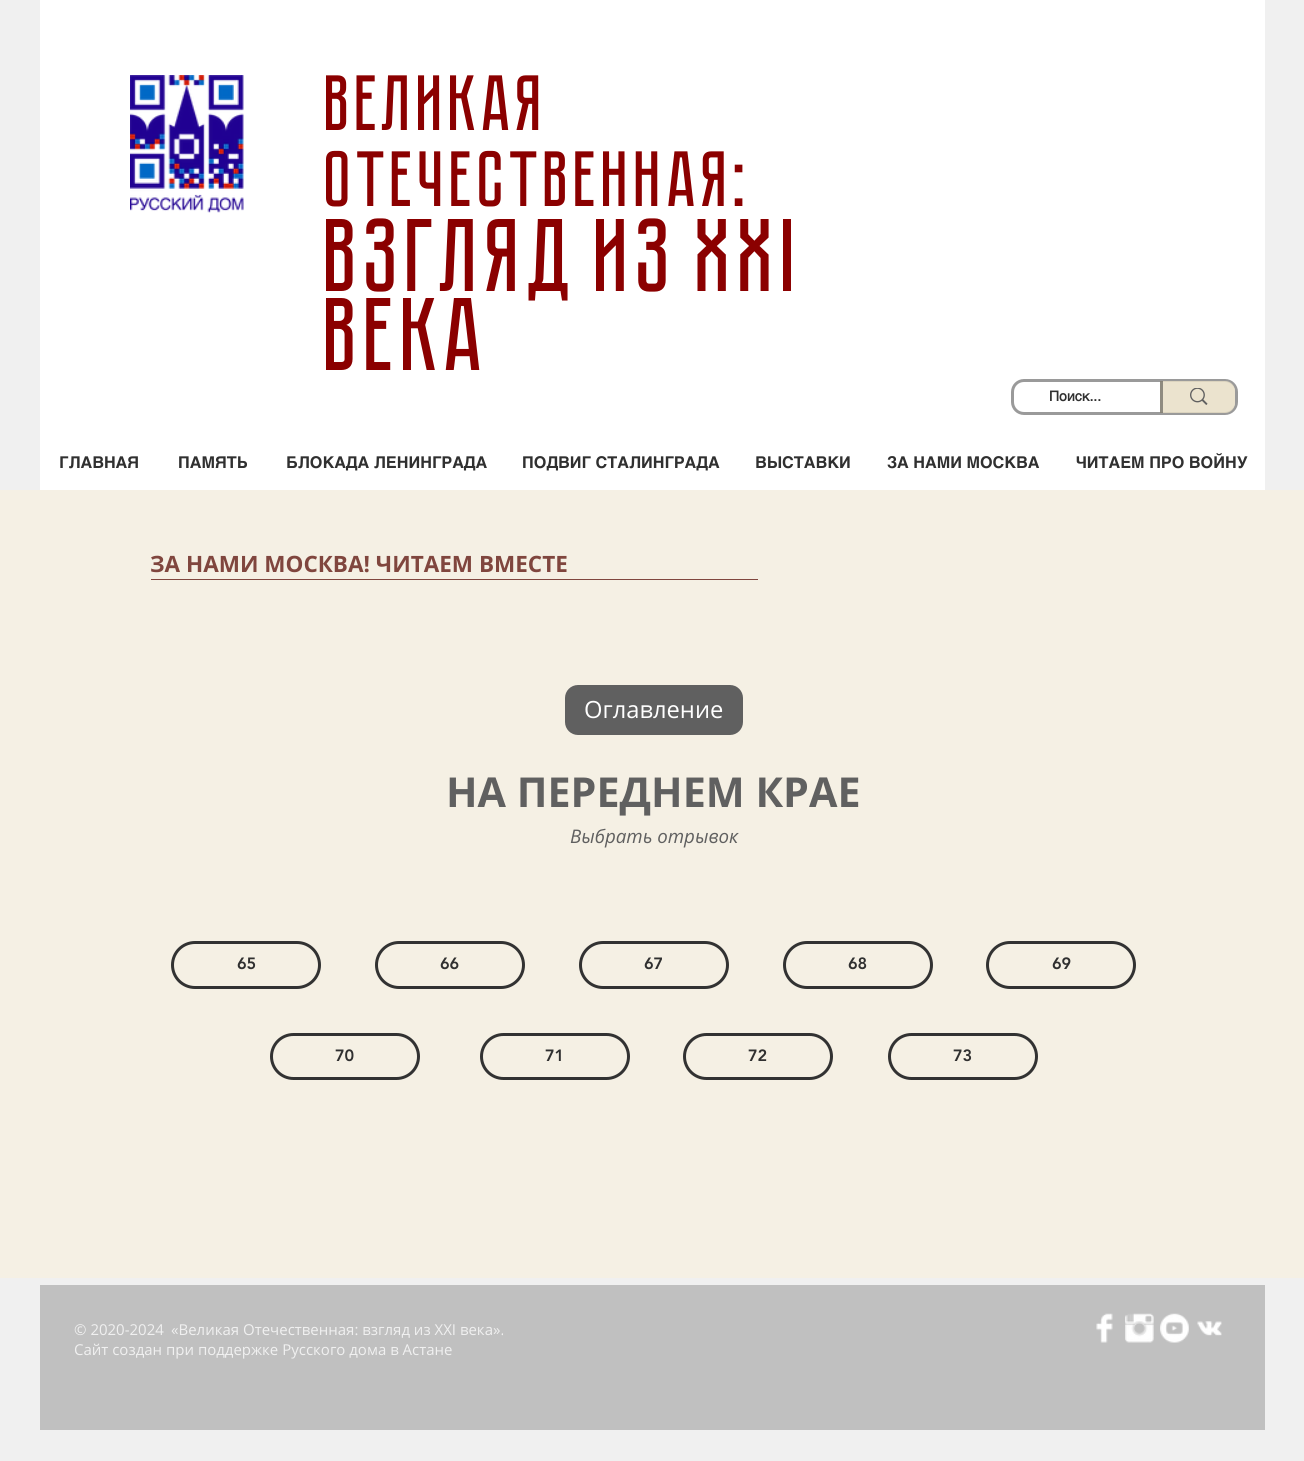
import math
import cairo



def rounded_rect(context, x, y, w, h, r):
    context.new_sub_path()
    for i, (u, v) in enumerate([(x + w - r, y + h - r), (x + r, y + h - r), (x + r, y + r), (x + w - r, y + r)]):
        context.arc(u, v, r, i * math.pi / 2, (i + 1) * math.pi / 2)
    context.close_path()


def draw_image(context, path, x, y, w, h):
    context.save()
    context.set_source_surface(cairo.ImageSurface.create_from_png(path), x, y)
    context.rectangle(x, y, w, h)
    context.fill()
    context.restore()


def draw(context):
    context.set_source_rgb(240 / 255, 240 / 255, 240 / 255)
    context.paint()
    context.set_source_rgb(1, 1, 1)
    context.rectangle(40, 0, 1225, 490)
    context.fill()
    draw_image(context, "images/1.png", 130, 75, 114, 138)
    rounded_rect(context, 1012.5, 380.5, 224, 33, 11.5)
    context.set_source_rgb(154 / 255, 154 / 255, 154 / 255)
    context.set_line_width(3)
    context.stroke()
    context.set_source_rgba(232 / 255, 222 / 255, 197 / 255, 0.84)
    context.new_path()
    context.move_to(1160, 381)
    context.line_to(1225, 381)
    context.curve_to(1230.5, 381, 1235, 385.5, 1235, 391)
    context.line_to(1235, 403)
    context.curve_to(1235, 408.5, 1230.5, 413, 1225, 413)
    context.line_to(1160, 413)
    context.close_path()
    context.fill()
    context.set_source_rgba(48 / 255, 48 / 255, 48 / 255, 0.49)
    context.rectangle(1160, 381, 3, 32)
    context.fill()
    draw_image(context, "images/2.png", 1190, 388, 18, 17)
    context.set_source_rgb(245 / 255, 240 / 255, 228 / 255)
    context.rectangle(0, 490, 1304, 788)
    context.fill()
    context.set_source_rgb(128 / 255, 70 / 255, 62 / 255)
    context.rectangle(151, 579, 607, 1)
    context.fill()
    context.set_source_rgb(96 / 255, 96 / 255, 96 / 255)
    rounded_rect(context, 565, 685, 178, 50, 13)
    context.fill()
    rounded_rect(context, 172.5, 942.5, 147, 45, 22.5)
    context.set_source_rgb(50 / 255, 50 / 255, 50 / 255)
    context.stroke()
    rounded_rect(context, 376.5, 942.5, 147, 45, 22.5)
    context.stroke()
    rounded_rect(context, 580.5, 942.5, 147, 45, 22.5)
    context.stroke()
    rounded_rect(context, 784.5, 942.5, 147, 45, 22.5)
    context.stroke()
    rounded_rect(context, 987.5, 942.5, 147, 45, 22.5)
    context.stroke()
    rounded_rect(context, 271.5, 1034.5, 147, 44, 22)
    context.stroke()
    rounded_rect(context, 481.5, 1034.5, 147, 44, 22)
    context.stroke()
    rounded_rect(context, 684.5, 1034.5, 147, 44, 22)
    context.stroke()
    rounded_rect(context, 889.5, 1034.5, 147, 44, 22)
    context.stroke()
    context.set_source_rgb(192 / 255, 192 / 255, 192 / 255)
    context.rectangle(40, 1285, 1225, 145)
    context.fill()
    draw_image(context, "images/3.png", 1096, 1313, 17, 30)
    draw_image(context, "images/4.png", 1125, 1313, 29, 30)
    draw_image(context, "images/5.png", 1160, 1313, 29, 30)
    draw_image(context, "images/6.png", 1197, 1321, 25, 15)
    context.select_font_face("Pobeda", cairo.FontSlant.NORMAL, cairo.FontWeight.BOLD)
    context.set_font_size(78.75)
    context.set_source_rgb(139 / 255, 0, 0)
    context.move_to(326, 130)
    context.show_text("Великая")
    context.move_to(326, 206)
    context.show_text("Отечественная:")
    context.set_font_size(103.75)
    context.move_to(326, 291)
    context.show_text("взгляд из XXI")
    context.move_to(326, 370)
    context.show_text("века")
    context.select_font_face("helvetica", cairo.FontSlant.NORMAL, cairo.FontWeight.BOLD)
    context.set_font_size(14)
    context.set_source_rgb(48 / 255, 48 / 255, 48 / 255)
    context.move_to(1049, 401)
    context.show_text("Поиск...")
    context.select_font_face("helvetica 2", cairo.FontSlant.NORMAL, cairo.FontWeight.BOLD)
    context.set_font_size(16.25)
    context.move_to(59, 468)
    context.show_text("ГЛАВНАЯ")
    context.move_to(178, 468)
    context.show_text("ПАМЯТЬ")
    context.move_to(286, 468)
    context.show_text("БЛОКАДА ЛЕНИНГРАДА")
    context.move_to(522, 468)
    context.show_text("ПОДВИГ СТАЛИНГРАДА")
    context.move_to(755, 468)
    context.show_text("ВЫСТАВКИ")
    context.move_to(887, 468)
    context.show_text("ЗА НАМИ МОСКВА")
    context.move_to(1076, 468)
    context.show_text("ЧИТАЕМ ПРО ВОЙНУ")
    context.select_font_face("Open Sans", cairo.FontSlant.NORMAL, cairo.FontWeight.BOLD)
    context.set_font_size(22.5)
    context.set_source_rgb(128 / 255, 70 / 255, 62 / 255)
    context.move_to(150, 572)
    context.show_text("ЗА НАМИ МОСКВА! ЧИТАЕМ ВМЕСТЕ")
    context.select_font_face("Open Sans")
    context.set_font_size(23.75)
    context.set_source_rgb(1, 1, 1)
    context.move_to(584, 718)
    context.show_text("Оглавление")
    context.select_font_face("Open Sans", cairo.FontSlant.NORMAL, cairo.FontWeight.BOLD)
    context.set_font_size(41.25)
    context.set_source_rgb(96 / 255, 96 / 255, 96 / 255)
    context.move_to(446, 807)
    context.show_text("НА ПЕРЕДНЕМ КРАЕ")
    context.select_font_face("Open Sans", cairo.FontSlant.ITALIC)
    context.set_font_size(18.75)
    context.move_to(570, 843)
    context.show_text("Выбрать отрывок")
    context.select_font_face("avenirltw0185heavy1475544 Black")
    context.set_font_size(16.25)
    context.set_source_rgb(48 / 255, 48 / 255, 48 / 255)
    context.move_to(237, 969)
    context.show_text("65")
    context.move_to(440, 969)
    context.show_text("66")
    context.move_to(644, 969)
    context.show_text("67")
    context.move_to(848, 969)
    context.show_text("68")
    context.move_to(1052, 969)
    context.show_text("69")
    context.move_to(335, 1061)
    context.show_text("70")
    context.move_to(545, 1061)
    context.show_text("71")
    context.move_to(748, 1061)
    context.show_text("72")
    context.move_to(953, 1061)
    context.show_text("73")
    context.select_font_face("Open Sans")
    context.set_font_size(15)
    context.set_source_rgb(240 / 255, 240 / 255, 240 / 255)
    context.move_to(74, 1335)
    context.show_text("© 2020-2024")
    context.move_to(171, 1335)
    context.show_text("«Великая Отечественная: взгляд из XXI века».")
    context.move_to(74, 1355)
    context.show_text("Сайт создан при поддержке Русского дома в Астане")


surface = cairo.ImageSurface(cairo.Format.RGB24, 1304, 1461)
context = cairo.Context(surface)
options = cairo.FontOptions()
options.set_hint_metrics(cairo.HintMetrics.OFF)
options.set_hint_style(cairo.HintStyle.NONE)
context.set_font_options(options)
context.set_miter_limit(4)
draw(context)
surface.write_to_png("out.png")
